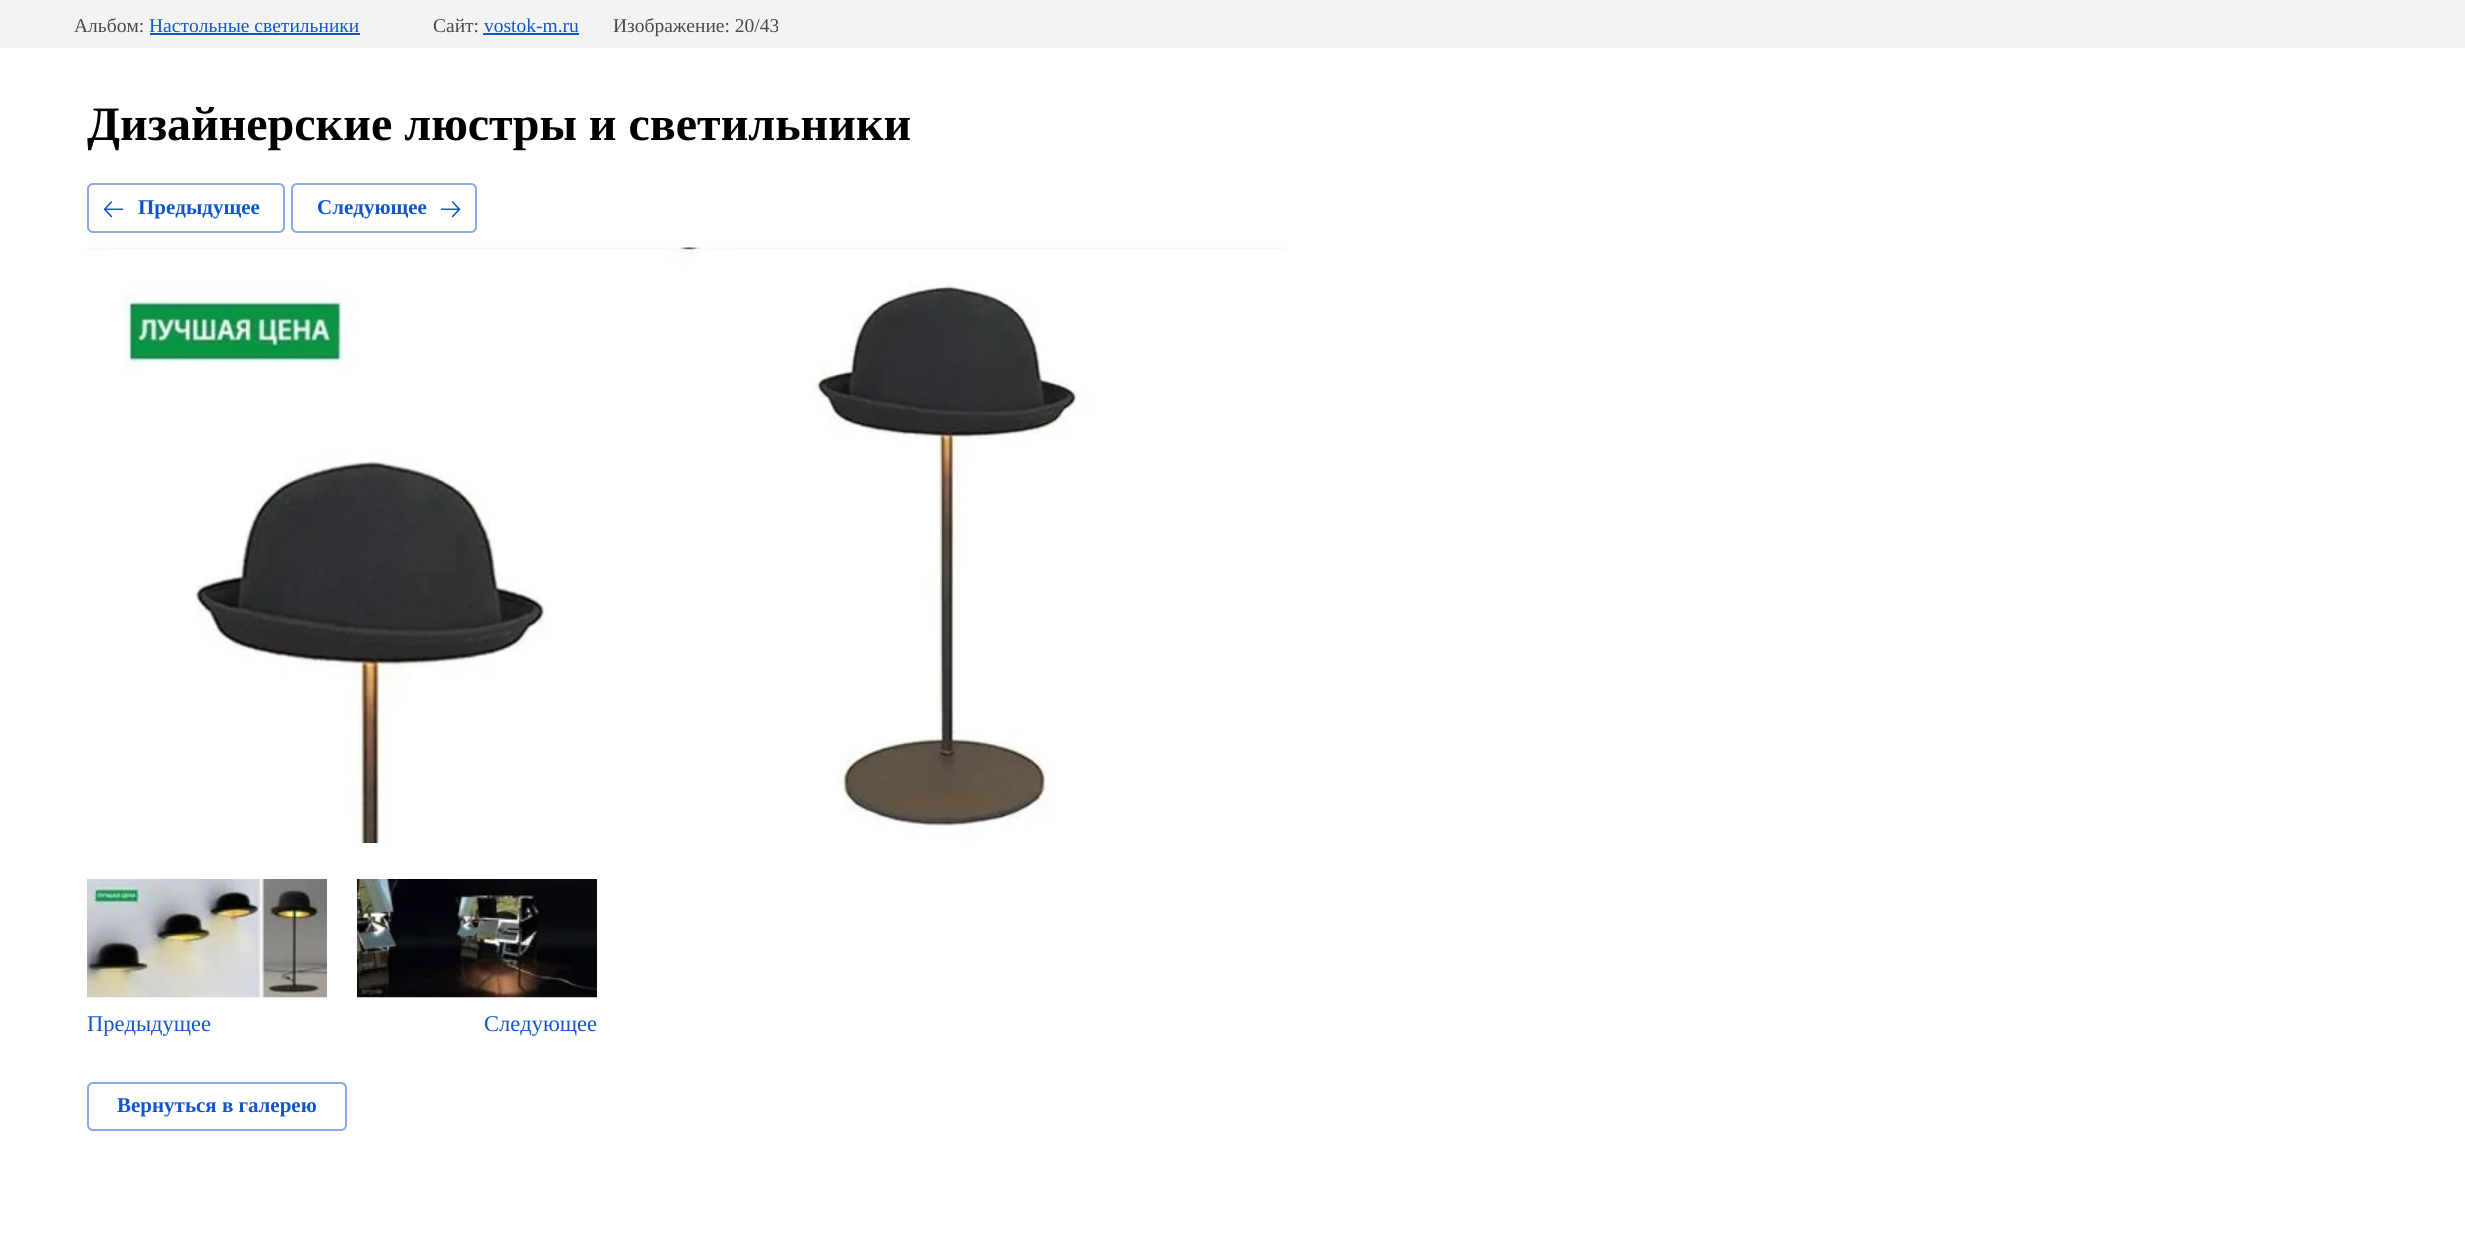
import math
import cairo



def rounded_rect(context, x, y, w, h, r):
    context.new_sub_path()
    for i, (u, v) in enumerate([(x + w - r, y + h - r), (x + r, y + h - r), (x + r, y + r), (x + w - r, y + r)]):
        context.arc(u, v, r, i * math.pi / 2, (i + 1) * math.pi / 2)
    context.close_path()


def draw_image(context, path, x, y, w, h):
    context.save()
    context.set_source_surface(cairo.ImageSurface.create_from_png(path), x, y)
    context.rectangle(x, y, w, h)
    context.fill()
    context.restore()


def draw(context):
    context.set_source_rgb(1, 1, 1)
    context.paint()
    context.set_source_rgb(243 / 255, 243 / 255, 243 / 255)
    context.rectangle(0, 0, 2465, 48)
    context.fill()
    context.set_source_rgb(17 / 255, 85 / 255, 204 / 255)
    context.rectangle(150, 33, 210, 2)
    context.fill()
    context.rectangle(483, 33, 96, 2)
    context.fill()
    rounded_rect(context, 88, 184, 196, 48, 5)
    context.set_source_rgb(136 / 255, 170 / 255, 230 / 255)
    context.stroke()
    draw_image(context, "images/1.png", 104, 201, 19, 17)
    rounded_rect(context, 292, 184, 184, 48, 5)
    context.stroke()
    draw_image(context, "images/2.png", 441, 201, 20, 17)
    draw_image(context, "images/3.png", 87, 247, 1200, 596)
    draw_image(context, "images/4.png", 87, 879, 240, 119)
    draw_image(context, "images/5.png", 357, 879, 240, 119)
    rounded_rect(context, 88, 1083, 258, 47, 5)
    context.stroke()
    context.select_font_face("Liberation Serif")
    context.set_font_size(19.5)
    context.set_source_rgb(72 / 255, 72 / 255, 72 / 255)
    context.move_to(74, 32)
    context.show_text("Альбом:")
    context.set_source_rgb(17 / 255, 85 / 255, 204 / 255)
    context.move_to(149, 32)
    context.show_text("Настольные светильники")
    context.set_source_rgb(72 / 255, 72 / 255, 72 / 255)
    context.move_to(433, 32)
    context.show_text("Сайт:")
    context.set_source_rgb(17 / 255, 85 / 255, 204 / 255)
    context.move_to(484, 32)
    context.show_text("vostok-m.ru")
    context.set_source_rgb(72 / 255, 72 / 255, 72 / 255)
    context.move_to(613, 32)
    context.show_text("Изображение: 20/43")
    context.select_font_face("Liberation Serif", cairo.FontSlant.NORMAL, cairo.FontWeight.BOLD)
    context.set_font_size(48)
    context.set_source_rgb(0, 0, 0)
    context.move_to(87, 140)
    context.show_text("Дизайнерские люстры и светильники")
    context.set_font_size(21)
    context.set_source_rgb(17 / 255, 85 / 255, 204 / 255)
    context.move_to(138, 214)
    context.show_text("Предыдущее")
    context.move_to(317, 214)
    context.show_text("Следующее")
    context.select_font_face("Liberation Serif")
    context.set_font_size(22.5)
    context.move_to(87, 1031)
    context.show_text("Предыдущее")
    context.move_to(484, 1031)
    context.show_text("Следующее")
    context.select_font_face("Liberation Serif", cairo.FontSlant.NORMAL, cairo.FontWeight.BOLD)
    context.set_font_size(21)
    context.move_to(117, 1112)
    context.show_text("Вернуться в галерею")


surface = cairo.ImageSurface(cairo.Format.RGB24, 2465, 1252)
context = cairo.Context(surface)
options = cairo.FontOptions()
options.set_hint_metrics(cairo.HintMetrics.OFF)
options.set_hint_style(cairo.HintStyle.NONE)
context.set_font_options(options)
context.set_miter_limit(4)
draw(context)
surface.write_to_png("out.png")
